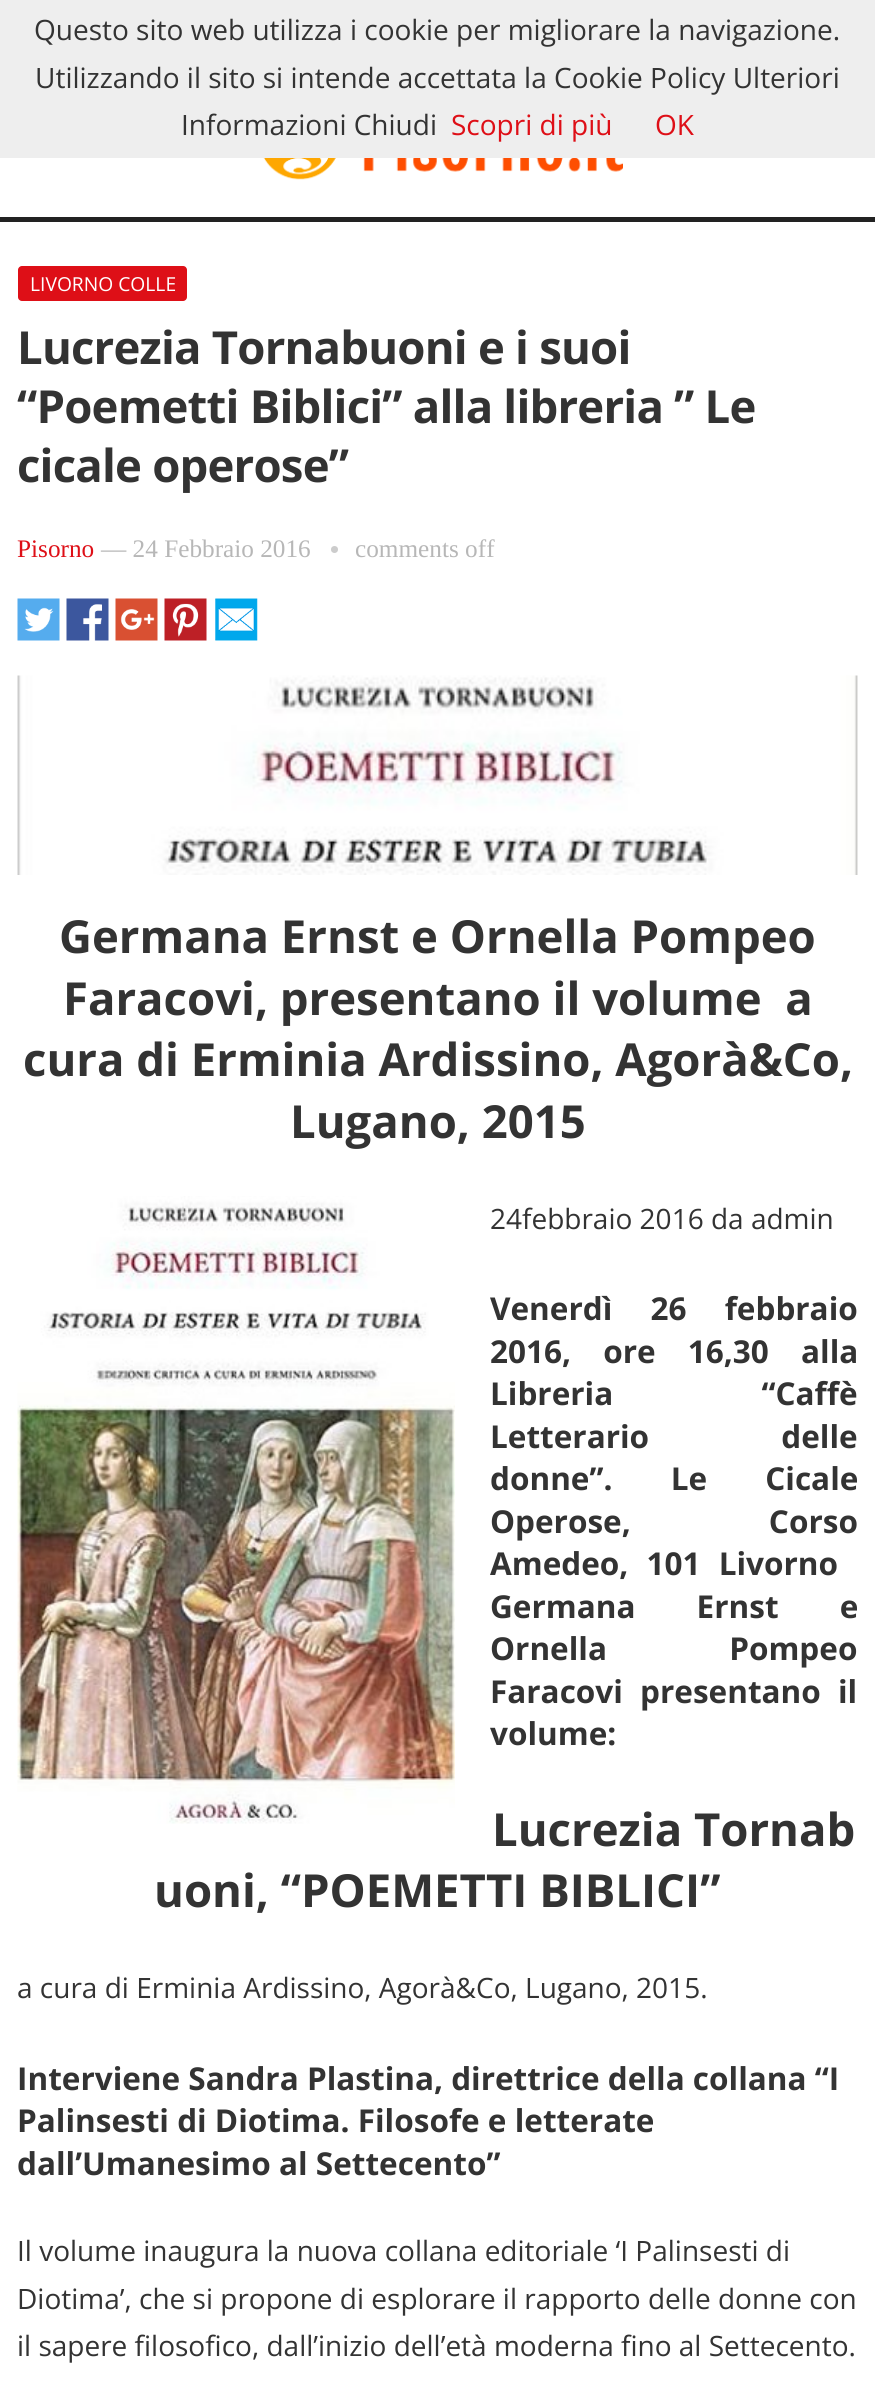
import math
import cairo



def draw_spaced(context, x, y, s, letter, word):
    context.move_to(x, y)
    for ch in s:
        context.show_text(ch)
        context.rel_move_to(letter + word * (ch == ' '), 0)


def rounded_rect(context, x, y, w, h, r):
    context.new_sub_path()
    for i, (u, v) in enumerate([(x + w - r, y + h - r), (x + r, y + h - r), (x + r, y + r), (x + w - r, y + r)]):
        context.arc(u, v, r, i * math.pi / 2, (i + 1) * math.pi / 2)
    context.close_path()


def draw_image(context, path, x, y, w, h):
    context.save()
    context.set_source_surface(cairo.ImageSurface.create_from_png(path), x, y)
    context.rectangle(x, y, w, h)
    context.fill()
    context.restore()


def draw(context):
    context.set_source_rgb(1, 1, 1)
    context.paint()
    context.set_source_rgb(238 / 255, 238 / 255, 238 / 255)
    context.rectangle(0, 0, 875, 158)
    context.fill()
    context.set_source_rgb(34 / 255, 34 / 255, 34 / 255)
    context.rectangle(0, 217, 875, 5)
    context.fill()
    draw_image(context, "images/1.png", 263, 158, 360, 22)
    context.set_source_rgb(222 / 255, 15 / 255, 23 / 255)
    rounded_rect(context, 18, 266, 169, 35, 4)
    context.fill()
    context.set_source_rgb(204 / 255, 204 / 255, 204 / 255)
    context.arc(334.5, 549.5, 3.5, 0, 2 * math.pi)
    context.fill()
    draw_image(context, "images/2.png", 17, 598, 43, 43)
    draw_image(context, "images/3.png", 66, 598, 43, 43)
    draw_image(context, "images/4.png", 115, 598, 43, 43)
    draw_image(context, "images/5.png", 164, 598, 43, 43)
    draw_image(context, "images/6.png", 215, 598, 43, 43)
    draw_image(context, "images/7.png", 17, 675, 841, 200)
    draw_image(context, "images/8.png", 17, 1196, 438, 628)
    context.select_font_face("Open Sans")
    context.set_font_size(28)
    context.set_source_rgb(51 / 255, 51 / 255, 51 / 255)
    context.move_to(34, 40)
    context.show_text("Questo sito web utilizza i cookie per migliorare la navigazione.")
    context.move_to(35, 88)
    context.show_text("Utilizzando il sito si intende accettata la Cookie Policy Ulteriori")
    context.move_to(181, 135)
    context.show_text("Informazioni Chiudi")
    context.set_source_rgb(222 / 255, 15 / 255, 23 / 255)
    context.move_to(451, 135)
    context.show_text("Scopri di più")
    context.move_to(655, 135)
    context.show_text("OK")
    context.set_font_size(19.25)
    context.set_source_rgb(1, 1, 1)
    context.move_to(30, 291)
    context.show_text("LIVORNO COLLE")
    context.select_font_face("Open Sans", cairo.FontSlant.NORMAL, cairo.FontWeight.BOLD)
    context.set_font_size(45.5)
    context.set_source_rgb(51 / 255, 51 / 255, 51 / 255)
    draw_spaced(context, 17, 364, "Lucrezia Tornabuoni e i suoi", -0.8, 0)
    draw_spaced(context, 17, 423, "“Poemetti Biblici” alla libreria ” Le", -0.8, 0)
    draw_spaced(context, 17, 482, "cicale operose”", -0.8, 0)
    context.select_font_face("Liberation Serif")
    context.set_font_size(25.25)
    context.set_source_rgb(222 / 255, 15 / 255, 23 / 255)
    context.move_to(17, 557)
    context.show_text("Pisorno")
    context.set_source_rgb(183 / 255, 183 / 255, 183 / 255)
    context.move_to(101, 557)
    context.show_text("— 24 Febbraio 2016")
    context.move_to(355, 557)
    context.show_text("comments off")
    context.select_font_face("Open Sans", cairo.FontSlant.NORMAL, cairo.FontWeight.BOLD)
    context.set_font_size(45.5)
    context.set_source_rgb(51 / 255, 51 / 255, 51 / 255)
    context.move_to(59, 953)
    context.show_text("Germana Ernst e Ornella Pompeo")
    context.move_to(63, 1015)
    context.show_text("Faracovi, presentano il volume  a")
    context.move_to(23, 1076)
    context.show_text("cura di Erminia Ardissino, Agorà&Co,")
    context.move_to(290, 1138)
    context.show_text("Lugano, 2015")
    context.select_font_face("Open Sans")
    context.set_font_size(28)
    context.move_to(490, 1229)
    context.show_text("24febbraio 2016 da admin")
    context.select_font_face("Open Sans", cairo.FontSlant.NORMAL, cairo.FontWeight.BOLD)
    context.set_font_size(31.5)
    draw_spaced(context, 490, 1320, "Venerdì 26 febbraio", 0, 30)
    draw_spaced(context, 490, 1363, "2016, ore 16,30 alla", 0, 24)
    draw_spaced(context, 490, 1405, "Libreria “Caffè", 0, 140)
    draw_spaced(context, 490, 1448, "Letterario delle", 0, 124)
    draw_spaced(context, 490, 1490, "donne”. Le Cicale", 0, 50)
    draw_spaced(context, 490, 1533, "Operose, Corso", 0, 130)
    draw_spaced(context, 490, 1575, "Amedeo, 101 Livorno", 0, 10)
    draw_spaced(context, 490, 1618, "Germana Ernst e", 0, 53)
    draw_spaced(context, 490, 1660, "Ornella Pompeo", 0, 114)
    draw_spaced(context, 490, 1703, "Faracovi presentano il", 0, 9)
    context.move_to(490, 1745)
    context.show_text("volume:")
    context.set_font_size(45.5)
    context.move_to(492, 1846)
    context.show_text("Lucrezia Tornab")
    context.move_to(154, 1907)
    context.show_text("uoni, “POEMETTI BIBLICI”")
    context.select_font_face("Open Sans")
    context.set_font_size(28)
    context.move_to(17, 1998)
    context.show_text("a cura di Erminia Ardissino, Agorà&Co, Lugano, 2015.")
    context.select_font_face("Open Sans", cairo.FontSlant.NORMAL, cairo.FontWeight.BOLD)
    context.set_font_size(31.5)
    context.move_to(17, 2090)
    context.show_text("Interviene Sandra Plastina, direttrice della collana “I")
    context.move_to(17, 2132)
    context.show_text("Palinsesti di Diotima. Filosofe e letterate")
    context.move_to(17, 2175)
    context.show_text("dall’Umanesimo al Settecento”")
    context.select_font_face("Open Sans")
    context.set_font_size(28)
    context.move_to(17, 2261)
    context.show_text("Il volume inaugura la nuova collana editoriale ‘I Palinsesti di")
    context.move_to(17, 2309)
    context.show_text("Diotima’, che si propone di esplorare il rapporto delle donne con")
    context.move_to(17, 2356)
    context.show_text("il sapere filosofico, dall’inizio dell’età moderna fino al Settecento.")


surface = cairo.ImageSurface(cairo.Format.RGB24, 875, 2392)
context = cairo.Context(surface)
options = cairo.FontOptions()
options.set_hint_metrics(cairo.HintMetrics.OFF)
options.set_hint_style(cairo.HintStyle.NONE)
context.set_font_options(options)
context.set_miter_limit(4)
draw(context)
surface.write_to_png("out.png")
